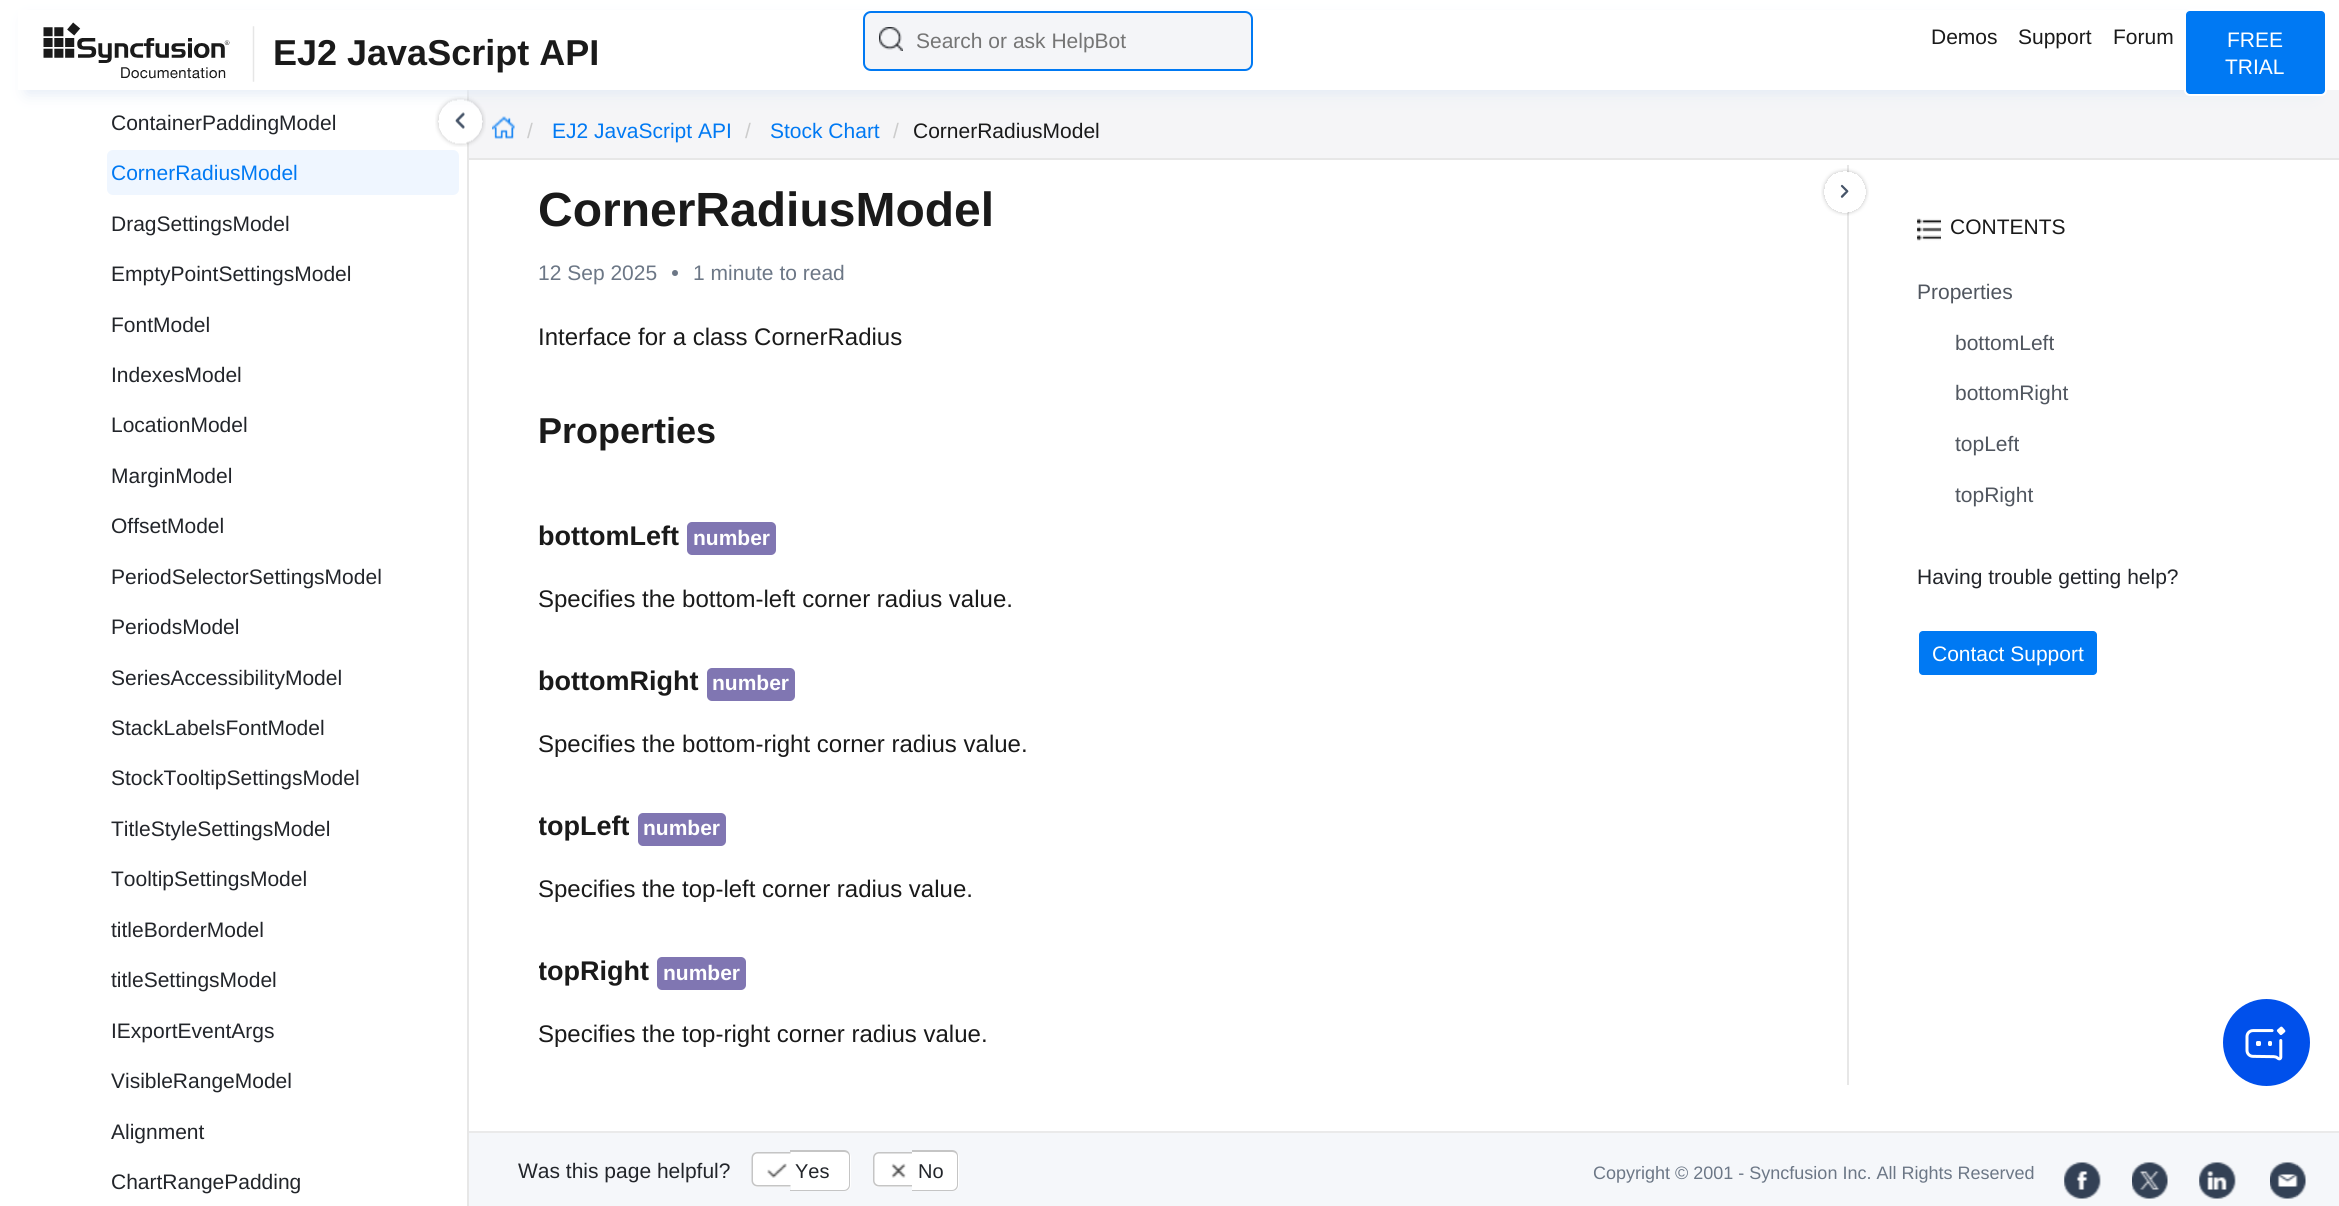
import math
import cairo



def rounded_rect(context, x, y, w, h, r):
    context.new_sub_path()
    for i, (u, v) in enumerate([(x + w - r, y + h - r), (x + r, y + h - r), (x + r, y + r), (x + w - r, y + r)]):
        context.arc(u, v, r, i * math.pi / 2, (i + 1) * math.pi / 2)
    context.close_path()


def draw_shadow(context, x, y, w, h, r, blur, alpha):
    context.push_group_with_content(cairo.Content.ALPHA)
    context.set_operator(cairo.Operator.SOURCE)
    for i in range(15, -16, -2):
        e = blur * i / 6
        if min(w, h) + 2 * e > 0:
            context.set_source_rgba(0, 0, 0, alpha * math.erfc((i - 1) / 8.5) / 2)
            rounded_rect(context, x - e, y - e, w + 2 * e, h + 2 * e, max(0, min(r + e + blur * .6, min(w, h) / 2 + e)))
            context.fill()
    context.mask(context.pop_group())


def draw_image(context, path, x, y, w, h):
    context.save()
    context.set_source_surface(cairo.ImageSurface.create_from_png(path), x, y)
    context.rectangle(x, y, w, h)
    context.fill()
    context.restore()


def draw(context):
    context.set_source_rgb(1, 1, 1)
    context.paint()
    context.set_source_rgb(245 / 255, 245 / 255, 247 / 255)
    context.rectangle(469, 90, 1870, 68)
    context.fill()
    draw_image(context, "images/3.png", 492, 116, 23, 23)
    context.set_source_rgb(231 / 255, 231 / 255, 231 / 255)
    context.rectangle(467, 90, 2, 1116)
    context.fill()
    draw_image(context, "images/4.png", 435, 96, 51, 51)
    context.set_source_rgb(226 / 255, 234 / 255, 245 / 255)
    draw_shadow(context, 27, 21, 2286, 72, 0, 8, 1)
    context.set_source_rgb(1, 1, 1)
    context.rectangle(18, 10, 2304, 80)
    context.fill()
    draw_image(context, "images/1.png", 43, 22, 212, 60)
    context.set_source_rgb(244 / 255, 245 / 255, 248 / 255)
    rounded_rect(context, 863, 11, 390, 60, 8)
    context.fill()
    draw_image(context, "images/2.png", 879, 27, 24, 24)
    rounded_rect(context, 864, 12, 388, 58, 7)
    context.set_source_rgb(0, 121 / 255, 243 / 255)
    context.stroke()
    rounded_rect(context, 2185, 10, 141, 85, 5)
    context.fill_preserve()
    context.set_source_rgb(1, 1, 1)
    context.stroke()
    context.set_source_rgb(231 / 255, 231 / 255, 231 / 255)
    context.rectangle(469, 158, 1870, 2)
    context.fill()
    context.set_source_rgb(239 / 255, 246 / 255, 1)
    rounded_rect(context, 107, 150, 352, 45, 6)
    context.fill()
    context.set_source_rgb(231 / 255, 231 / 255, 231 / 255)
    context.rectangle(1847, 165, 2, 920)
    context.fill()
    context.set_source_rgb(108 / 255, 119 / 255, 134 / 255)
    context.arc(675, 273, 3, 0, 2 * math.pi)
    context.fill()
    context.set_source_rgb(128 / 255, 118 / 255, 178 / 255)
    rounded_rect(context, 687, 522, 89, 33, 5)
    context.fill()
    rounded_rect(context, 707, 668, 88, 33, 5)
    context.fill()
    rounded_rect(context, 638, 813, 88, 33, 5)
    context.fill()
    rounded_rect(context, 657, 957, 89, 33, 5)
    context.fill()
    draw_image(context, "images/5.png", 1821, 168, 48, 48)
    draw_image(context, "images/6.png", 1917, 218, 24, 23)
    context.set_source_rgb(0, 121 / 255, 243 / 255)
    rounded_rect(context, 1918, 630, 180, 46, 5)
    context.fill_preserve()
    context.set_source_rgb(1, 1, 1)
    context.stroke()
    context.set_source_rgb(0, 80 / 255, 235 / 255)
    context.arc(2266.5, 1042.5, 43.5, 0, 2 * math.pi)
    context.fill()
    draw_image(context, "images/7.png", 2245, 1026, 41, 35)
    context.set_source_rgb(245 / 255, 247 / 255, 250 / 255)
    context.rectangle(469, 1133, 1870, 73)
    context.fill()
    context.set_source_rgb(234 / 255, 234 / 255, 234 / 255)
    context.rectangle(469, 1131, 1870, 2)
    context.fill()
    context.set_source_rgb(1, 1, 1)
    context.new_path()
    context.move_to(758, 1152)
    context.line_to(791, 1152)
    context.line_to(791, 1187)
    context.line_to(758, 1187)
    context.curve_to(754.5, 1187, 752, 1184.5, 752, 1181)
    context.line_to(752, 1158)
    context.curve_to(752, 1154.5, 754.5, 1152, 758, 1152)
    context.close_path()
    context.fill()
    context.set_source_rgb(197 / 255, 197 / 255, 197 / 255)
    context.set_fill_rule(cairo.FillRule.EVEN_ODD)
    context.new_path()
    context.move_to(757.5, 1152)
    context.line_to(790.5, 1152)
    context.line_to(790.5, 1186.5)
    context.line_to(757.5, 1186.5)
    context.curve_to(754, 1186.5, 751.5, 1184, 751.5, 1180.5)
    context.line_to(751.5, 1158)
    context.curve_to(751.5, 1154.5, 754, 1152, 757.5, 1152)
    context.close_path()
    context.move_to(757.5, 1153.5)
    context.line_to(790.5, 1153.5)
    context.line_to(790.5, 1185)
    context.line_to(757.5, 1185)
    context.curve_to(755, 1185, 753, 1183, 753, 1180.5)
    context.line_to(753, 1158)
    context.curve_to(753, 1155.5, 755, 1153.5, 757.5, 1153.5)
    context.close_path()
    context.fill()
    context.set_source_rgb(1, 1, 1)
    context.new_path()
    context.move_to(791, 1151)
    context.line_to(845, 1151)
    context.curve_to(848.5, 1151, 851, 1153.5, 851, 1157)
    context.line_to(851, 1185)
    context.curve_to(851, 1188.5, 848.5, 1191, 845, 1191)
    context.line_to(791, 1191)
    context.close_path()
    context.fill()
    context.set_source_rgb(197 / 255, 197 / 255, 197 / 255)
    context.new_path()
    context.move_to(790, 1150)
    context.line_to(844, 1150)
    context.curve_to(848, 1150, 850, 1153, 850, 1156)
    context.line_to(850, 1185)
    context.curve_to(850, 1188, 848, 1191, 844, 1191)
    context.line_to(790, 1191)
    context.close_path()
    context.move_to(790, 1152)
    context.line_to(844, 1152)
    context.curve_to(847, 1152, 849, 1154, 849, 1156)
    context.line_to(849, 1185)
    context.curve_to(849, 1187, 847, 1190, 844, 1190)
    context.line_to(790, 1190)
    context.close_path()
    context.fill()
    draw_image(context, "images/8.png", 767, 1163, 20, 15)
    context.set_source_rgb(1, 1, 1)
    context.new_path()
    context.move_to(879, 1152)
    context.line_to(912, 1152)
    context.line_to(912, 1187)
    context.line_to(879, 1187)
    context.curve_to(875.5, 1187, 873, 1184.5, 873, 1181)
    context.line_to(873, 1158)
    context.curve_to(873, 1154.5, 875.5, 1152, 879, 1152)
    context.close_path()
    context.fill()
    context.set_source_rgb(197 / 255, 197 / 255, 197 / 255)
    context.new_path()
    context.move_to(879, 1152)
    context.line_to(912, 1152)
    context.line_to(912, 1186.5)
    context.line_to(879, 1186.5)
    context.curve_to(875.5, 1186.5, 873, 1184, 873, 1180.5)
    context.line_to(873, 1158)
    context.curve_to(873, 1154.5, 875.5, 1152, 879, 1152)
    context.close_path()
    context.move_to(879, 1153.5)
    context.line_to(912, 1153.5)
    context.line_to(912, 1185)
    context.line_to(879, 1185)
    context.curve_to(876.5, 1185, 874.5, 1183, 874.5, 1180.5)
    context.line_to(874.5, 1158)
    context.curve_to(874.5, 1155.5, 876.5, 1153.5, 879, 1153.5)
    context.close_path()
    context.fill()
    context.set_source_rgb(1, 1, 1)
    context.new_path()
    context.move_to(912, 1151)
    context.line_to(953, 1151)
    context.curve_to(956.5, 1151, 959, 1153.5, 959, 1157)
    context.line_to(959, 1185)
    context.curve_to(959, 1188.5, 956.5, 1191, 953, 1191)
    context.line_to(912, 1191)
    context.close_path()
    context.fill()
    context.set_source_rgb(197 / 255, 197 / 255, 197 / 255)
    context.new_path()
    context.move_to(912, 1150)
    context.line_to(952, 1150)
    context.curve_to(956, 1150, 958, 1153, 958, 1156)
    context.line_to(958, 1185)
    context.curve_to(958, 1188, 956, 1191, 952, 1191)
    context.line_to(912, 1191)
    context.close_path()
    context.move_to(912, 1152)
    context.line_to(952, 1152)
    context.curve_to(955, 1152, 957, 1154, 957, 1156)
    context.line_to(957, 1185)
    context.curve_to(957, 1187, 955, 1190, 952, 1190)
    context.line_to(912, 1190)
    context.close_path()
    context.fill()
    draw_image(context, "images/9.png", 891, 1163, 15, 15)
    draw_image(context, "images/10.png", 2064, 1162, 37, 37)
    draw_image(context, "images/11.png", 2132, 1162, 36, 37)
    draw_image(context, "images/12.png", 2199, 1162, 37, 37)
    draw_image(context, "images/13.png", 2270, 1162, 36, 37)
    context.select_font_face("Liberation Sans", cairo.FontSlant.NORMAL, cairo.FontWeight.BOLD)
    context.set_font_size(36)
    context.set_source_rgb(26 / 255, 26 / 255, 26 / 255)
    context.move_to(273, 65)
    context.show_text("EJ2 JavaScript API")
    context.select_font_face("Liberation Sans")
    context.set_font_size(21)
    context.set_source_rgb(117 / 255, 117 / 255, 117 / 255)
    context.move_to(916, 48)
    context.show_text("Search or ask HelpBot")
    context.set_source_rgb(26 / 255, 26 / 255, 26 / 255)
    context.move_to(1931, 44)
    context.show_text("Demos")
    context.move_to(2018, 44)
    context.show_text("Support")
    context.move_to(2113, 44)
    context.show_text("Forum")
    context.set_source_rgb(1, 1, 1)
    context.move_to(2227, 47)
    context.show_text("FREE")
    context.move_to(2225, 74)
    context.show_text("TRIAL")
    context.set_source_rgb(204 / 255, 204 / 255, 204 / 255)
    context.move_to(527, 138)
    context.show_text("/")
    context.set_source_rgb(0, 121 / 255, 243 / 255)
    context.move_to(552, 138)
    context.show_text("EJ2 JavaScript API")
    context.set_source_rgb(204 / 255, 204 / 255, 204 / 255)
    context.move_to(745, 138)
    context.show_text("/")
    context.set_source_rgb(0, 121 / 255, 243 / 255)
    context.move_to(770, 138)
    context.show_text("Stock Chart")
    context.set_source_rgb(204 / 255, 204 / 255, 204 / 255)
    context.move_to(893, 138)
    context.show_text("/")
    context.set_source_rgb(26 / 255, 26 / 255, 26 / 255)
    context.move_to(913, 138)
    context.show_text("CornerRadiusModel")
    context.set_source_rgb(34 / 255, 37 / 255, 42 / 255)
    context.move_to(111, 130)
    context.show_text("ContainerPaddingModel")
    context.set_source_rgb(0, 121 / 255, 243 / 255)
    context.move_to(111, 180)
    context.show_text("CornerRadiusModel")
    context.set_source_rgb(34 / 255, 37 / 255, 42 / 255)
    context.move_to(111, 231)
    context.show_text("DragSettingsModel")
    context.move_to(111, 281)
    context.show_text("EmptyPointSettingsModel")
    context.move_to(111, 332)
    context.show_text("FontModel")
    context.move_to(111, 382)
    context.show_text("IndexesModel")
    context.move_to(111, 432)
    context.show_text("LocationModel")
    context.move_to(111, 483)
    context.show_text("MarginModel")
    context.move_to(111, 533)
    context.show_text("OffsetModel")
    context.move_to(111, 584)
    context.show_text("PeriodSelectorSettingsModel")
    context.move_to(111, 634)
    context.show_text("PeriodsModel")
    context.move_to(111, 685)
    context.show_text("SeriesAccessibilityModel")
    context.move_to(111, 735)
    context.show_text("StackLabelsFontModel")
    context.move_to(111, 785)
    context.show_text("StockTooltipSettingsModel")
    context.move_to(111, 836)
    context.show_text("TitleStyleSettingsModel")
    context.move_to(111, 886)
    context.show_text("TooltipSettingsModel")
    context.move_to(111, 937)
    context.show_text("titleBorderModel")
    context.move_to(111, 987)
    context.show_text("titleSettingsModel")
    context.move_to(111, 1038)
    context.show_text("IExportEventArgs")
    context.move_to(111, 1088)
    context.show_text("VisibleRangeModel")
    context.move_to(111, 1139)
    context.show_text("Alignment")
    context.move_to(111, 1189)
    context.show_text("ChartRangePadding")
    context.select_font_face("Liberation Sans", cairo.FontSlant.NORMAL, cairo.FontWeight.BOLD)
    context.set_font_size(48)
    context.set_source_rgb(26 / 255, 26 / 255, 26 / 255)
    context.move_to(538, 226)
    context.show_text("CornerRadiusModel")
    context.select_font_face("Liberation Sans")
    context.set_font_size(21)
    context.set_source_rgb(108 / 255, 119 / 255, 134 / 255)
    context.move_to(538, 280)
    context.show_text("12 Sep 2025")
    context.move_to(693, 280)
    context.show_text("1 minute to read")
    context.set_font_size(24)
    context.set_source_rgb(26 / 255, 26 / 255, 26 / 255)
    context.move_to(538, 345)
    context.show_text("Interface for a class CornerRadius")
    context.select_font_face("Liberation Sans", cairo.FontSlant.NORMAL, cairo.FontWeight.BOLD)
    context.set_font_size(36)
    context.move_to(538, 443)
    context.show_text("Properties")
    context.set_font_size(27)
    context.move_to(538, 545)
    context.show_text("bottomLeft")
    context.set_font_size(21)
    context.set_source_rgb(1, 1, 1)
    context.move_to(693, 545)
    context.show_text("number")
    context.select_font_face("Liberation Sans")
    context.set_font_size(24)
    context.set_source_rgb(26 / 255, 26 / 255, 26 / 255)
    context.move_to(538, 607)
    context.show_text("Specifies the bottom-left corner radius value.")
    context.select_font_face("Liberation Sans", cairo.FontSlant.NORMAL, cairo.FontWeight.BOLD)
    context.set_font_size(27)
    context.move_to(538, 690)
    context.show_text("bottomRight")
    context.set_font_size(21)
    context.set_source_rgb(1, 1, 1)
    context.move_to(712, 690)
    context.show_text("number")
    context.select_font_face("Liberation Sans")
    context.set_font_size(24)
    context.set_source_rgb(26 / 255, 26 / 255, 26 / 255)
    context.move_to(538, 752)
    context.show_text("Specifies the bottom-right corner radius value.")
    context.save()
    context.set_fill_rule(cairo.FillRule.WINDING)
    context.rectangle(539, 165, 1308, 920)
    context.clip()
    context.select_font_face("Liberation Sans", cairo.FontSlant.NORMAL, cairo.FontWeight.BOLD)
    context.set_font_size(27)
    context.move_to(538, 835)
    context.show_text("topLeft")
    context.restore()
    context.select_font_face("Liberation Sans", cairo.FontSlant.NORMAL, cairo.FontWeight.BOLD)
    context.set_font_size(21)
    context.set_source_rgb(1, 1, 1)
    context.move_to(643, 835)
    context.show_text("number")
    context.select_font_face("Liberation Sans")
    context.set_font_size(24)
    context.set_source_rgb(26 / 255, 26 / 255, 26 / 255)
    context.move_to(538, 897)
    context.show_text("Specifies the top-left corner radius value.")
    context.save()
    context.set_fill_rule(cairo.FillRule.WINDING)
    context.rectangle(539, 165, 1308, 920)
    context.clip()
    context.select_font_face("Liberation Sans", cairo.FontSlant.NORMAL, cairo.FontWeight.BOLD)
    context.set_font_size(27)
    context.move_to(538, 980)
    context.show_text("topRight")
    context.restore()
    context.select_font_face("Liberation Sans", cairo.FontSlant.NORMAL, cairo.FontWeight.BOLD)
    context.set_font_size(21)
    context.set_source_rgb(1, 1, 1)
    context.move_to(663, 980)
    context.show_text("number")
    context.select_font_face("Liberation Sans")
    context.set_font_size(24)
    context.set_source_rgb(26 / 255, 26 / 255, 26 / 255)
    context.move_to(538, 1042)
    context.show_text("Specifies the top-right corner radius value.")
    context.set_font_size(21)
    context.move_to(1950, 234)
    context.show_text("CONTENTS")
    context.set_source_rgb(80 / 255, 86 / 255, 95 / 255)
    context.move_to(1917, 299)
    context.show_text("Properties")
    context.move_to(1955, 350)
    context.show_text("bottomLeft")
    context.move_to(1955, 400)
    context.show_text("bottomRight")
    context.move_to(1955, 451)
    context.show_text("topLeft")
    context.move_to(1955, 502)
    context.show_text("topRight")
    context.set_source_rgb(34 / 255, 37 / 255, 42 / 255)
    context.move_to(1917, 584)
    context.show_text("Having trouble getting help?")
    context.set_source_rgb(1, 1, 1)
    context.move_to(1932, 661)
    context.show_text("Contact Support")
    context.set_source_rgb(34 / 255, 37 / 255, 42 / 255)
    context.move_to(518, 1178)
    context.show_text("Was this page helpful?")
    context.set_font_size(20)
    context.move_to(795, 1178)
    context.show_text("Yes")
    context.move_to(918, 1178)
    context.show_text("No")
    context.set_font_size(18)
    context.set_source_rgb(108 / 255, 119 / 255, 134 / 255)
    context.move_to(1593, 1179)
    context.show_text("Copyright © 2001 - Syncfusion Inc. All Rights Reserved")


surface = cairo.ImageSurface(cairo.Format.RGB24, 2339, 1206)
context = cairo.Context(surface)
options = cairo.FontOptions()
options.set_hint_metrics(cairo.HintMetrics.OFF)
options.set_hint_style(cairo.HintStyle.NONE)
context.set_font_options(options)
context.set_miter_limit(4)
draw(context)
surface.write_to_png("out.png")
